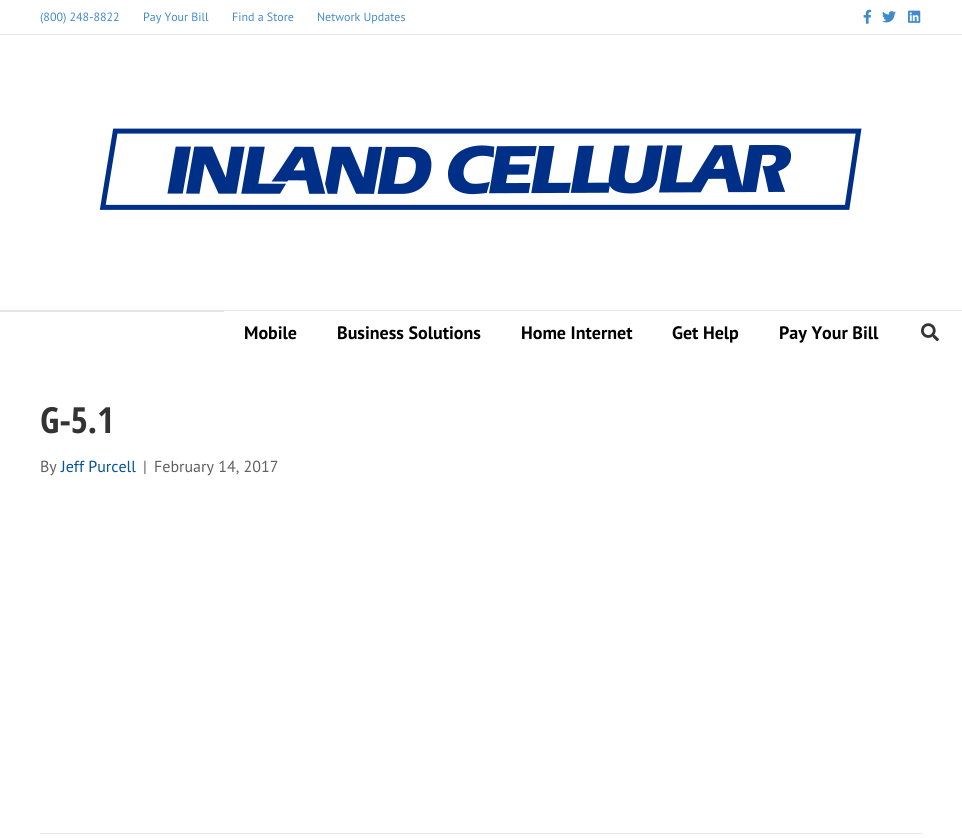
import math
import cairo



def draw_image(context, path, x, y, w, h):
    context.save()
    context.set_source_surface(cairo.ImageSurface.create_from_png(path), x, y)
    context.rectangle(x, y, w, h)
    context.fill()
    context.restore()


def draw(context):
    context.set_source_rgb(1, 1, 1)
    context.paint()
    context.set_source_rgb(230 / 255, 230 / 255, 230 / 255)
    context.rectangle(0, 34, 962, 1)
    context.fill()
    draw_image(context, "images/1.png", 863, 9, 9, 15)
    draw_image(context, "images/2.png", 882, 11, 14, 12)
    draw_image(context, "images/3.png", 908, 10, 13, 13)
    draw_image(context, "images/4.png", 99, 128, 763, 82)
    context.rectangle(0, 310, 962, 1)
    context.fill()
    context.rectangle(0, 311, 224, 1)
    context.fill()
    draw_image(context, "images/5.png", 921, 323, 18, 19)
    context.rectangle(40, 833, 882, 1)
    context.fill()
    context.select_font_face("PT Sans")
    context.set_font_size(12)
    context.set_source_rgb(66 / 255, 139 / 255, 202 / 255)
    context.move_to(40, 21)
    context.show_text("(800) 248-8822")
    context.move_to(143, 21)
    context.show_text("Pay Your Bill")
    context.move_to(232, 21)
    context.show_text("Find a Store")
    context.move_to(317, 21)
    context.show_text("Network Updates")
    context.select_font_face("PT Sans", cairo.FontSlant.NORMAL, cairo.FontWeight.BOLD)
    context.set_font_size(18)
    context.set_source_rgb(0, 0, 0)
    context.move_to(244, 339)
    context.show_text("Mobile")
    context.move_to(337, 339)
    context.show_text("Business Solutions")
    context.move_to(521, 339)
    context.show_text("Home Internet")
    context.move_to(672, 339)
    context.show_text("Get Help")
    context.move_to(779, 339)
    context.show_text("Pay Your Bill")
    context.select_font_face("Open Sans Condensed", cairo.FontSlant.NORMAL, cairo.FontWeight.BOLD)
    context.set_font_size(36)
    context.set_source_rgb(51 / 255, 51 / 255, 51 / 255)
    context.move_to(40, 433)
    context.show_text("G-5.1")
    context.select_font_face("PT Sans")
    context.set_font_size(16)
    context.set_source_rgb(96 / 255, 96 / 255, 96 / 255)
    context.move_to(40, 472)
    context.show_text("By")
    context.set_source_rgb(0, 82 / 255, 155 / 255)
    context.move_to(61, 472)
    context.show_text("Jeff Purcell")
    context.set_source_rgb(96 / 255, 96 / 255, 96 / 255)
    context.move_to(143, 472)
    context.show_text("|")
    context.move_to(154, 472)
    context.show_text("February 14, 2017")


surface = cairo.ImageSurface(cairo.Format.RGB24, 962, 838)
context = cairo.Context(surface)
options = cairo.FontOptions()
options.set_hint_metrics(cairo.HintMetrics.OFF)
options.set_hint_style(cairo.HintStyle.NONE)
context.set_font_options(options)
context.set_miter_limit(4)
draw(context)
surface.write_to_png("out.png")
